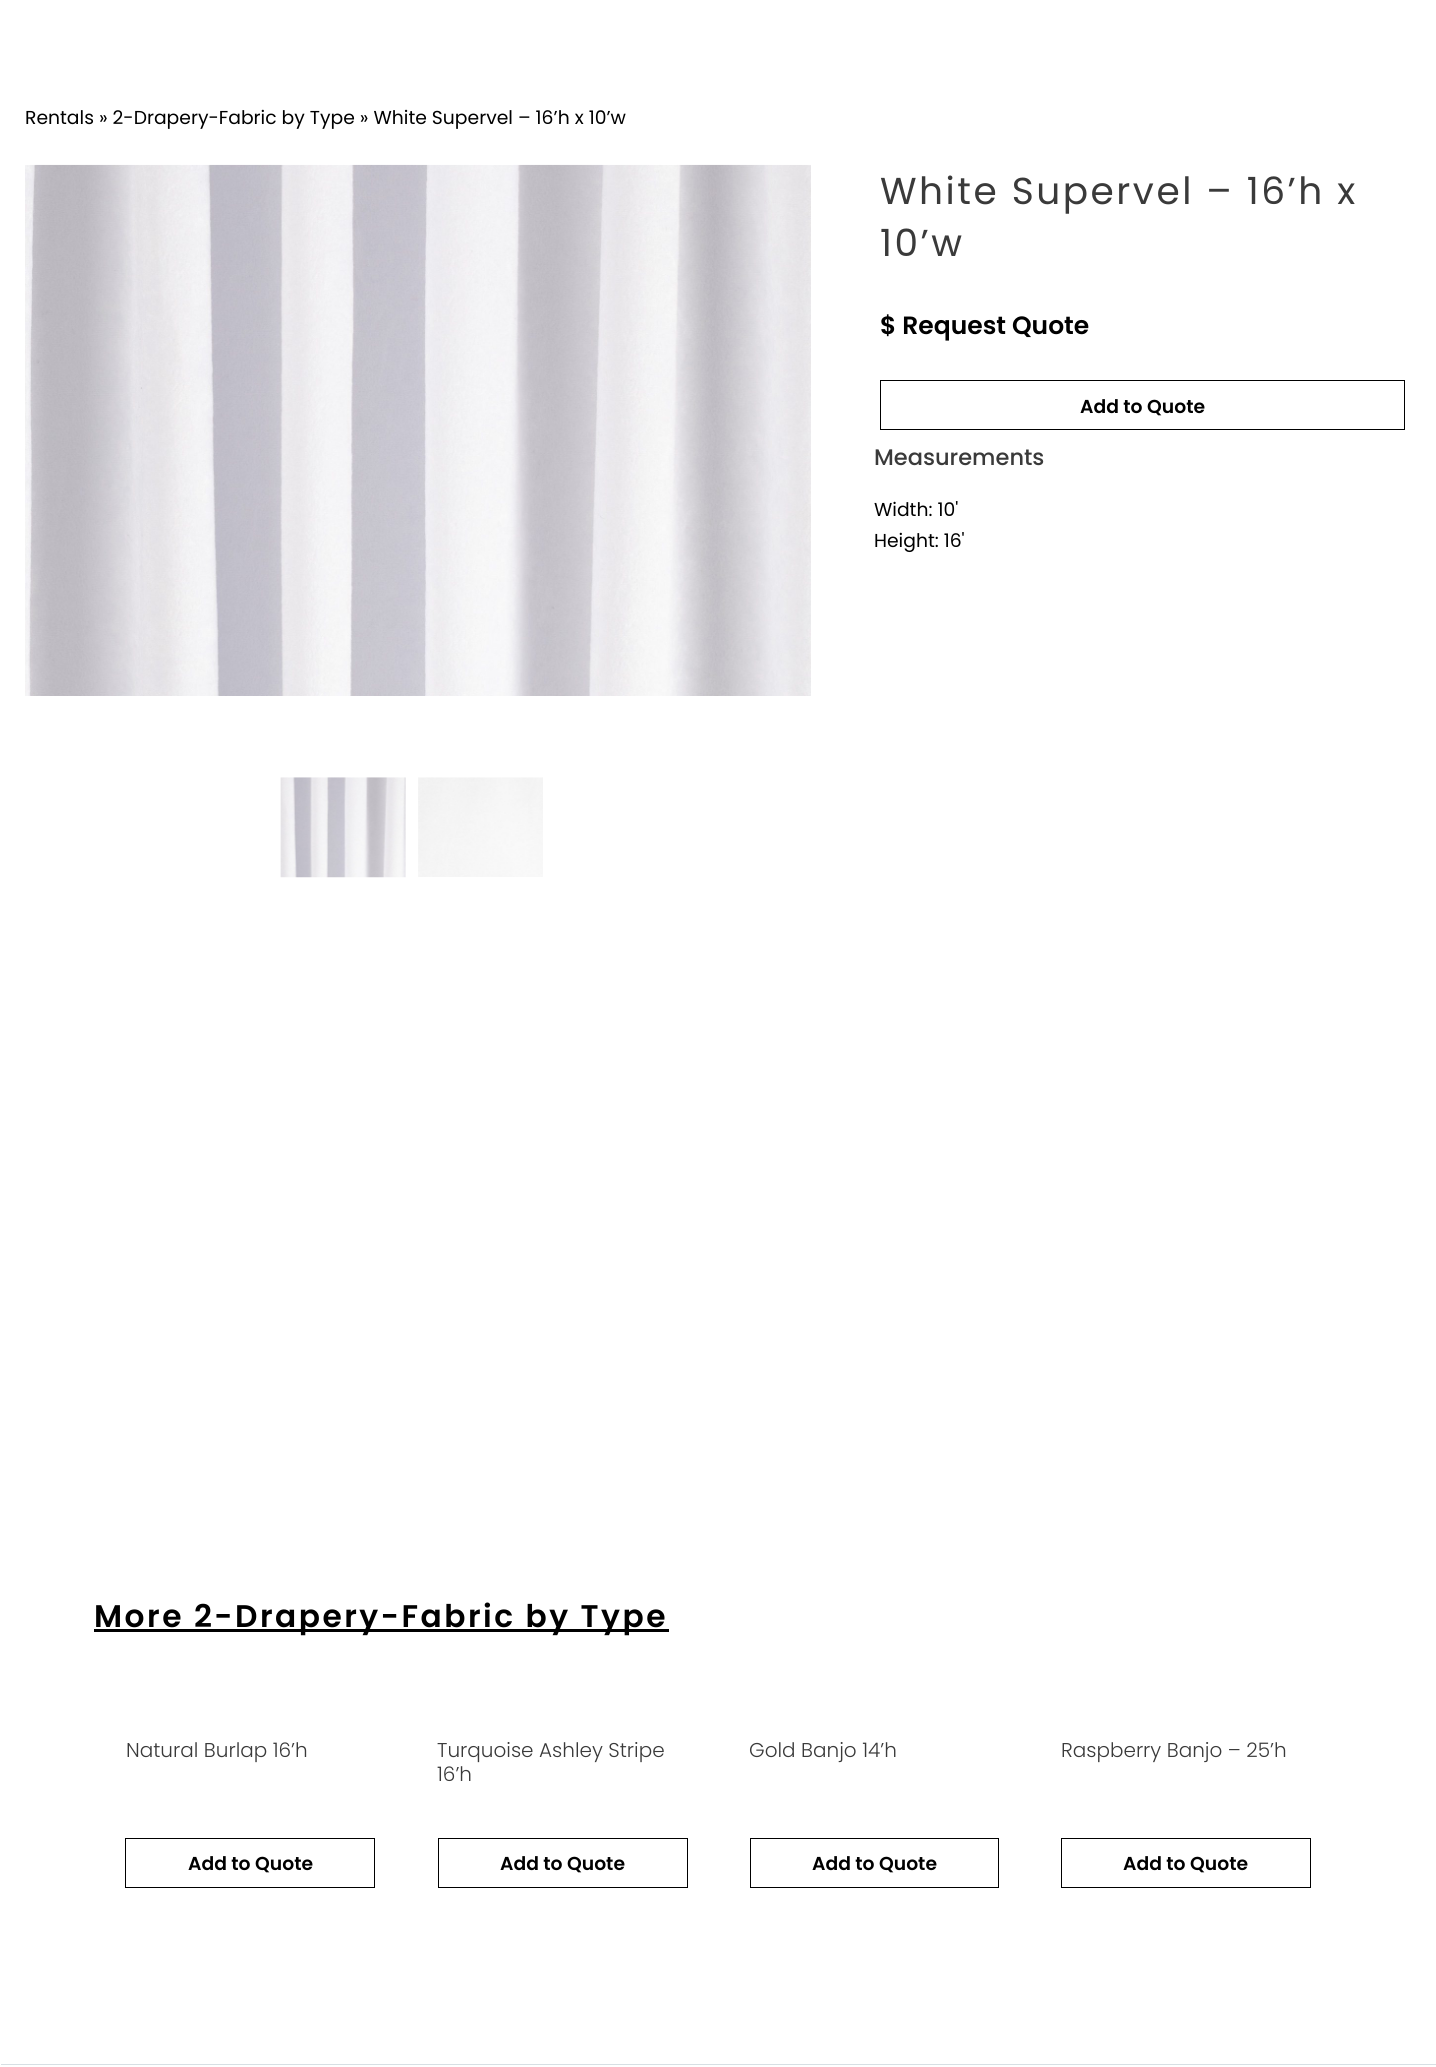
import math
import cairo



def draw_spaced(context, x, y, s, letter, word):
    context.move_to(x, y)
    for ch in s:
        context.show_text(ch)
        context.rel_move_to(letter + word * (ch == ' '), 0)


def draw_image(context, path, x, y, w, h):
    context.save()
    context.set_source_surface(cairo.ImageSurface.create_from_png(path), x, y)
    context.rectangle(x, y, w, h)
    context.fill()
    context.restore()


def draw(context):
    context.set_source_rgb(1, 1, 1)
    context.paint()
    draw_image(context, "images/1.png", 25, 164, 786, 532)
    draw_image(context, "images/2.png", 280, 777, 126, 101)
    draw_image(context, "images/3.png", 418, 777, 125, 100)
    context.rectangle(880.5, 380.5, 524, 49)
    context.set_source_rgb(0, 0, 0)
    context.set_line_width(1)
    context.stroke()
    context.rectangle(94, 1629, 575, 3)
    context.fill()
    context.rectangle(125.5, 1838.5, 249, 49)
    context.stroke()
    context.rectangle(438.5, 1838.5, 249, 49)
    context.stroke()
    context.rectangle(750.5, 1838.5, 248, 49)
    context.stroke()
    context.rectangle(1061.5, 1838.5, 249, 49)
    context.stroke()
    context.set_source_rgb(215 / 255, 223 / 255, 227 / 255)
    context.rectangle(1, 2064, 1435, 1)
    context.fill()
    context.select_font_face("Poppins")
    context.set_font_size(18.75)
    context.set_source_rgb(0, 0, 0)
    context.move_to(25, 124)
    context.show_text("Rentals » 2-Drapery-Fabric by Type » White Supervel – 16’h x 10’w")
    context.set_font_size(37.5)
    context.set_source_rgb(58 / 255, 58 / 255, 58 / 255)
    draw_spaced(context, 880, 204, "White Supervel – 16’h x", 2.5, 0)
    draw_spaced(context, 880, 256, "10’w", 2.5, 0)
    context.select_font_face("Poppins SemiBold")
    context.set_font_size(25)
    context.set_source_rgb(0, 0, 0)
    context.move_to(880, 334)
    context.show_text("$ Request Quote")
    context.set_font_size(18.75)
    context.move_to(1080, 413)
    context.show_text("Add to Quote")
    context.select_font_face("Poppins Medium")
    context.set_font_size(22.5)
    context.set_source_rgb(58 / 255, 58 / 255, 58 / 255)
    context.move_to(874, 465)
    context.show_text("Measurements")
    context.select_font_face("Poppins")
    context.set_font_size(18.75)
    context.set_source_rgb(0, 0, 0)
    context.move_to(874, 516)
    context.show_text("Width: 10'")
    context.move_to(874, 547)
    context.show_text("Height: 16'")
    context.select_font_face("Poppins SemiBold")
    context.set_font_size(31.25)
    draw_spaced(context, 94, 1627, "More 2-Drapery-Fabric by Type", 2.5, 0)
    context.select_font_face("Poppins Light")
    context.set_font_size(20)
    context.set_source_rgb(58 / 255, 58 / 255, 58 / 255)
    context.move_to(126, 1757)
    context.show_text("Natural Burlap 16’h")
    context.select_font_face("Poppins SemiBold")
    context.set_font_size(18.75)
    context.set_source_rgb(0, 0, 0)
    context.move_to(188, 1870)
    context.show_text("Add to Quote")
    context.select_font_face("Poppins Light")
    context.set_font_size(20)
    context.set_source_rgb(58 / 255, 58 / 255, 58 / 255)
    context.move_to(437, 1757)
    context.show_text("Turquoise Ashley Stripe")
    context.move_to(437, 1781)
    context.show_text("16’h")
    context.select_font_face("Poppins SemiBold")
    context.set_font_size(18.75)
    context.set_source_rgb(0, 0, 0)
    context.move_to(500, 1870)
    context.show_text("Add to Quote")
    context.select_font_face("Poppins Light")
    context.set_font_size(20)
    context.set_source_rgb(58 / 255, 58 / 255, 58 / 255)
    context.move_to(749, 1757)
    context.show_text("Gold Banjo 14’h")
    context.select_font_face("Poppins SemiBold")
    context.set_font_size(18.75)
    context.set_source_rgb(0, 0, 0)
    context.move_to(812, 1870)
    context.show_text("Add to Quote")
    context.select_font_face("Poppins Light")
    context.set_font_size(20)
    context.set_source_rgb(58 / 255, 58 / 255, 58 / 255)
    context.move_to(1061, 1757)
    context.show_text("Raspberry Banjo – 25’h")
    context.select_font_face("Poppins SemiBold")
    context.set_font_size(18.75)
    context.set_source_rgb(0, 0, 0)
    context.move_to(1123, 1870)
    context.show_text("Add to Quote")


surface = cairo.ImageSurface(cairo.Format.RGB24, 1436, 2067)
context = cairo.Context(surface)
options = cairo.FontOptions()
options.set_hint_metrics(cairo.HintMetrics.OFF)
options.set_hint_style(cairo.HintStyle.NONE)
context.set_font_options(options)
context.set_miter_limit(4)
draw(context)
surface.write_to_png("out.png")
